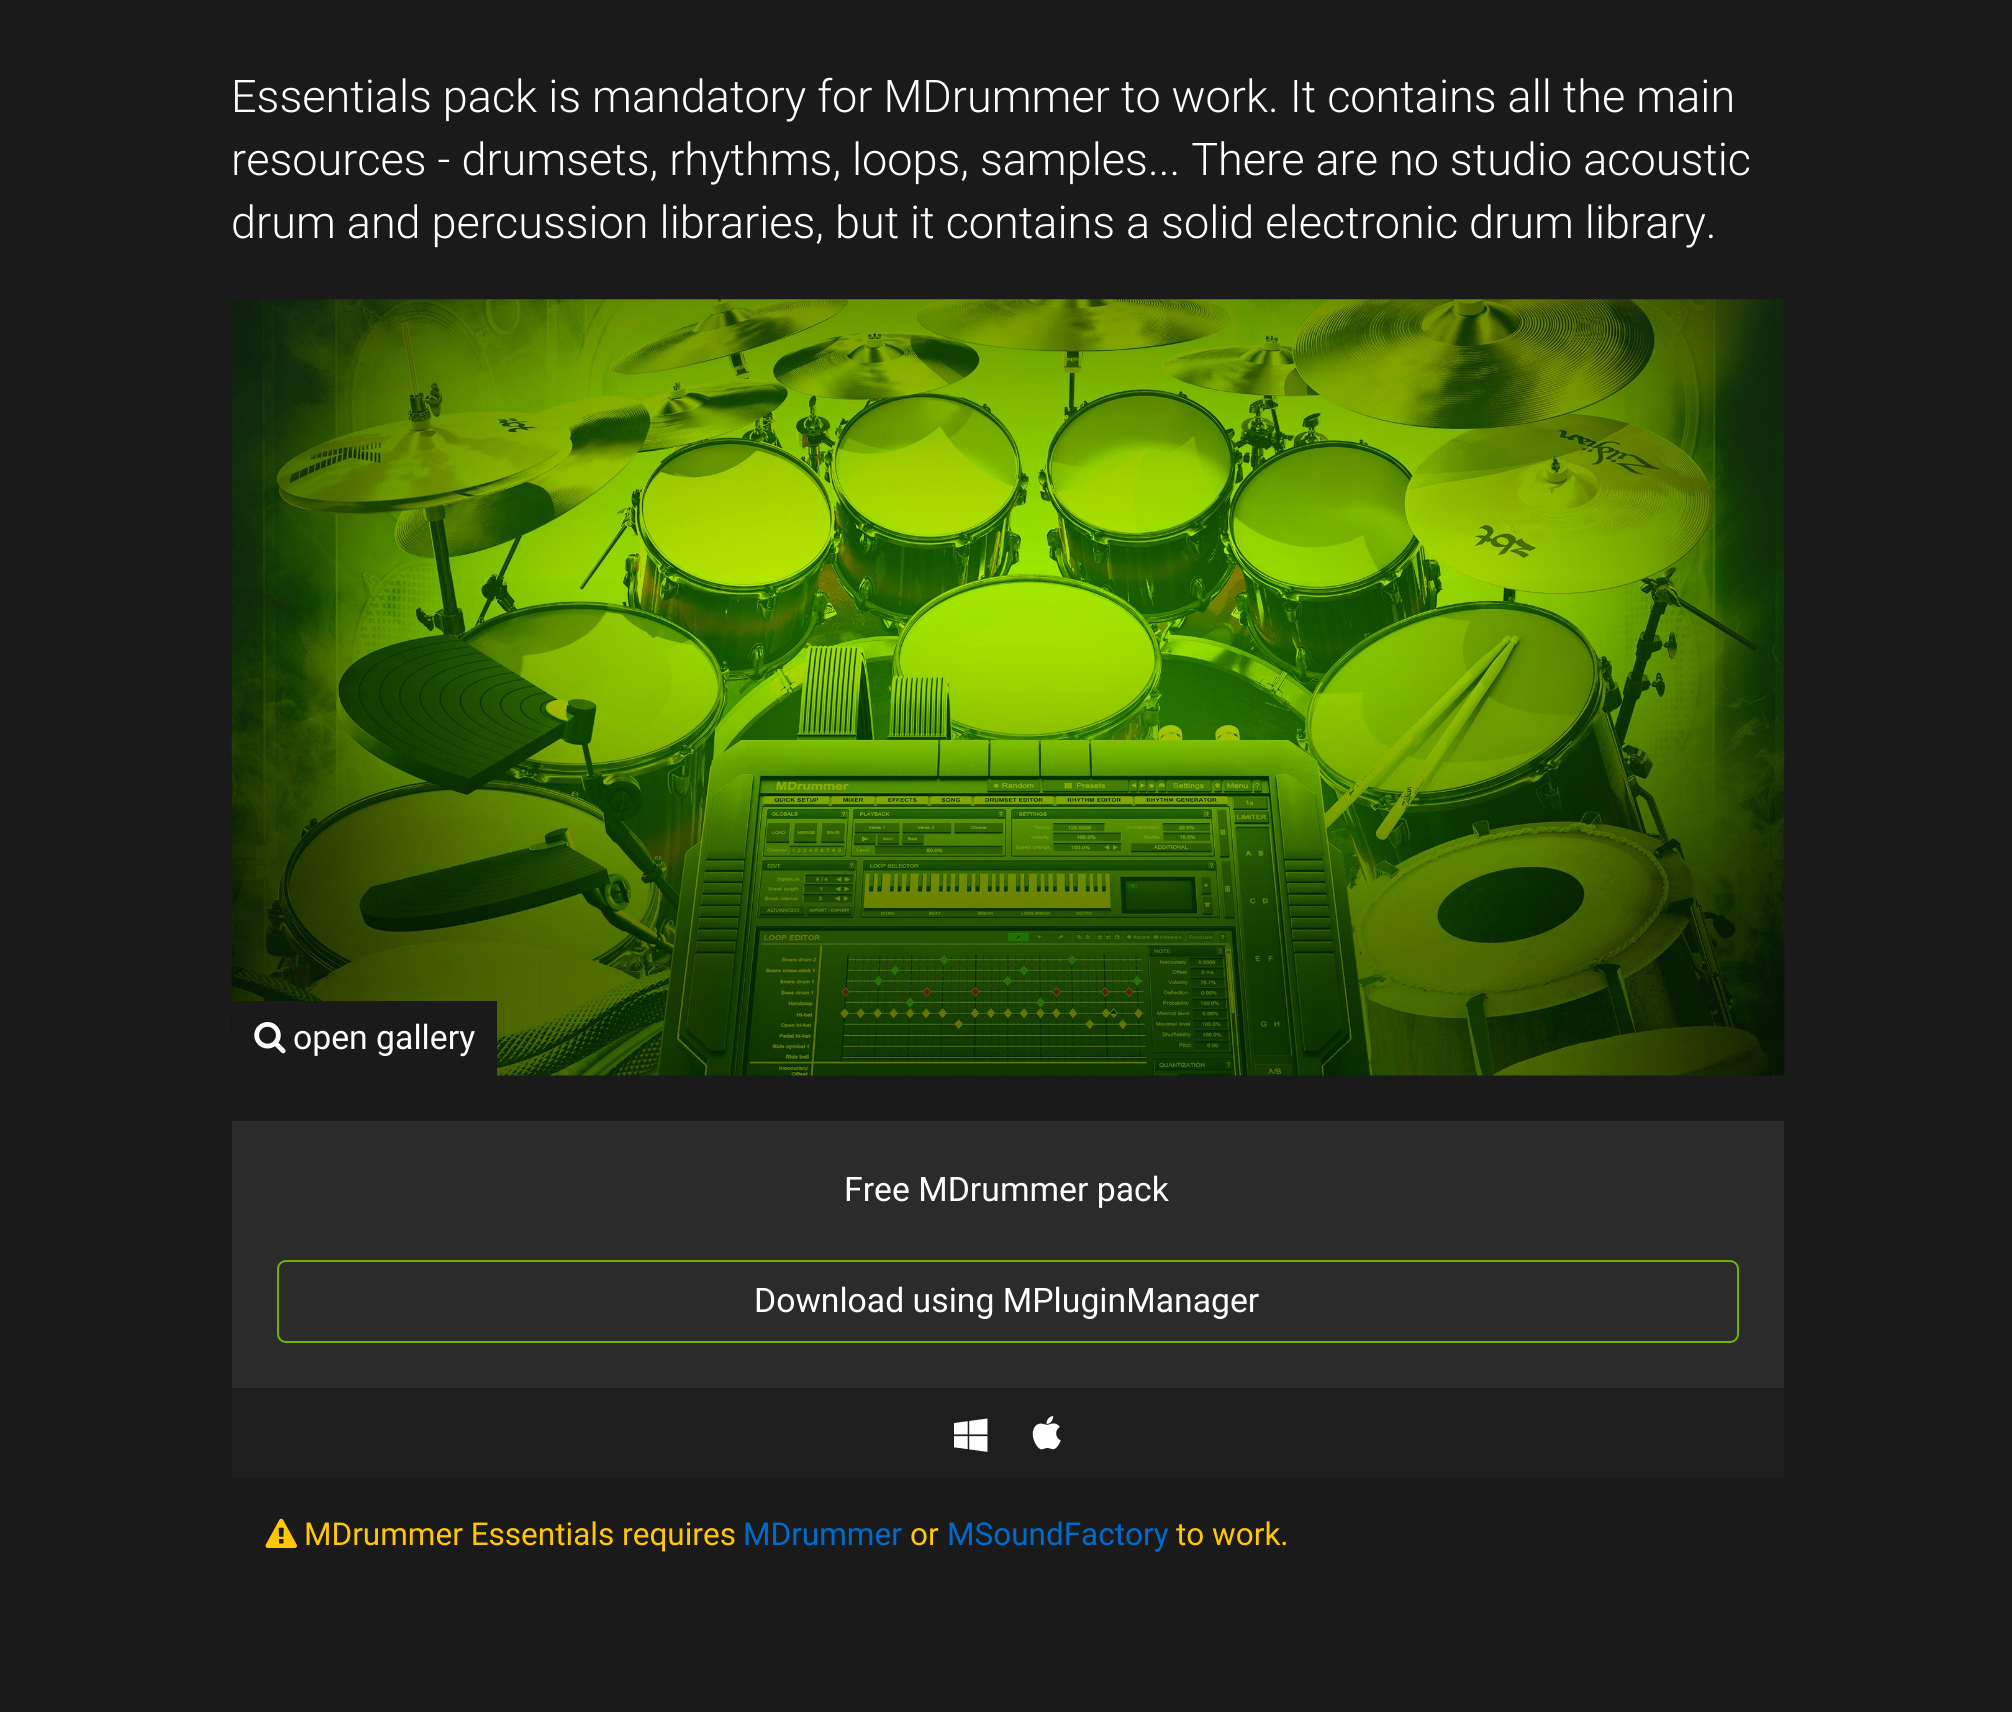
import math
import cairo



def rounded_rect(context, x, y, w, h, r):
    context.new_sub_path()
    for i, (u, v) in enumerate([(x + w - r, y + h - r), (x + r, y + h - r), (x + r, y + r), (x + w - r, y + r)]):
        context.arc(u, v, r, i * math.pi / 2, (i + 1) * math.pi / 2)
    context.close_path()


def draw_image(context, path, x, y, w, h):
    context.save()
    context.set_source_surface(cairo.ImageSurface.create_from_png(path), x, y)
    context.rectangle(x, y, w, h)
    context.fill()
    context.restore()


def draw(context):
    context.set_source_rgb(26 / 255, 26 / 255, 26 / 255)
    context.paint()
    draw_image(context, "images/1.png", 231, 299, 1554, 777)
    context.set_source_rgb(26 / 255, 26 / 255, 26 / 255)
    context.rectangle(232, 1001, 265, 75)
    context.fill()
    draw_image(context, "images/2.png", 254, 1022, 32, 32)
    context.set_source_rgb(43 / 255, 43 / 255, 43 / 255)
    context.rectangle(232, 1121, 1552, 267)
    context.fill()
    rounded_rect(context, 278, 1261, 1460, 81, 8)
    context.set_source_rgb(112 / 255, 179 / 255, 0)
    context.stroke()
    context.set_source_rgb(30 / 255, 30 / 255, 30 / 255)
    context.rectangle(232, 1388, 1552, 90)
    context.fill()
    draw_image(context, "images/3.png", 954, 1418, 34, 34)
    draw_image(context, "images/4.png", 1032, 1416, 29, 34)
    draw_image(context, "images/5.png", 265, 1518, 32, 30)
    context.select_font_face("Roboto Light")
    context.set_font_size(45)
    context.set_source_rgb(1, 1, 1)
    context.move_to(231, 112)
    context.show_text("Essentials pack is mandatory for MDrummer to work. It contains all the main")
    context.move_to(231, 175)
    context.show_text("resources - drumsets, rhythms, loops, samples... There are no studio acoustic")
    context.move_to(231, 238)
    context.show_text("drum and percussion libraries, but it contains a solid electronic drum library.")
    context.select_font_face("Roboto")
    context.set_font_size(33.75)
    context.move_to(293, 1049)
    context.show_text("open gallery")
    context.move_to(844, 1201)
    context.show_text("Free MDrummer pack")
    context.move_to(754, 1312)
    context.show_text("Download using MPluginManager")
    context.set_font_size(31.5)
    context.set_source_rgb(1, 199 / 255, 4 / 255)
    context.move_to(304, 1545)
    context.show_text("MDrummer Essentials requires")
    context.set_source_rgb(0, 107 / 255, 205 / 255)
    context.move_to(743, 1545)
    context.show_text("MDrummer")
    context.set_source_rgb(1, 199 / 255, 4 / 255)
    context.move_to(910, 1545)
    context.show_text("or")
    context.set_source_rgb(0, 107 / 255, 205 / 255)
    context.move_to(947, 1545)
    context.show_text("MSoundFactory")
    context.set_source_rgb(1, 199 / 255, 4 / 255)
    context.move_to(1176, 1545)
    context.show_text("to work.")


surface = cairo.ImageSurface(cairo.Format.RGB24, 2012, 1712)
context = cairo.Context(surface)
options = cairo.FontOptions()
options.set_hint_metrics(cairo.HintMetrics.OFF)
options.set_hint_style(cairo.HintStyle.NONE)
context.set_font_options(options)
context.set_miter_limit(4)
draw(context)
surface.write_to_png("out.png")
